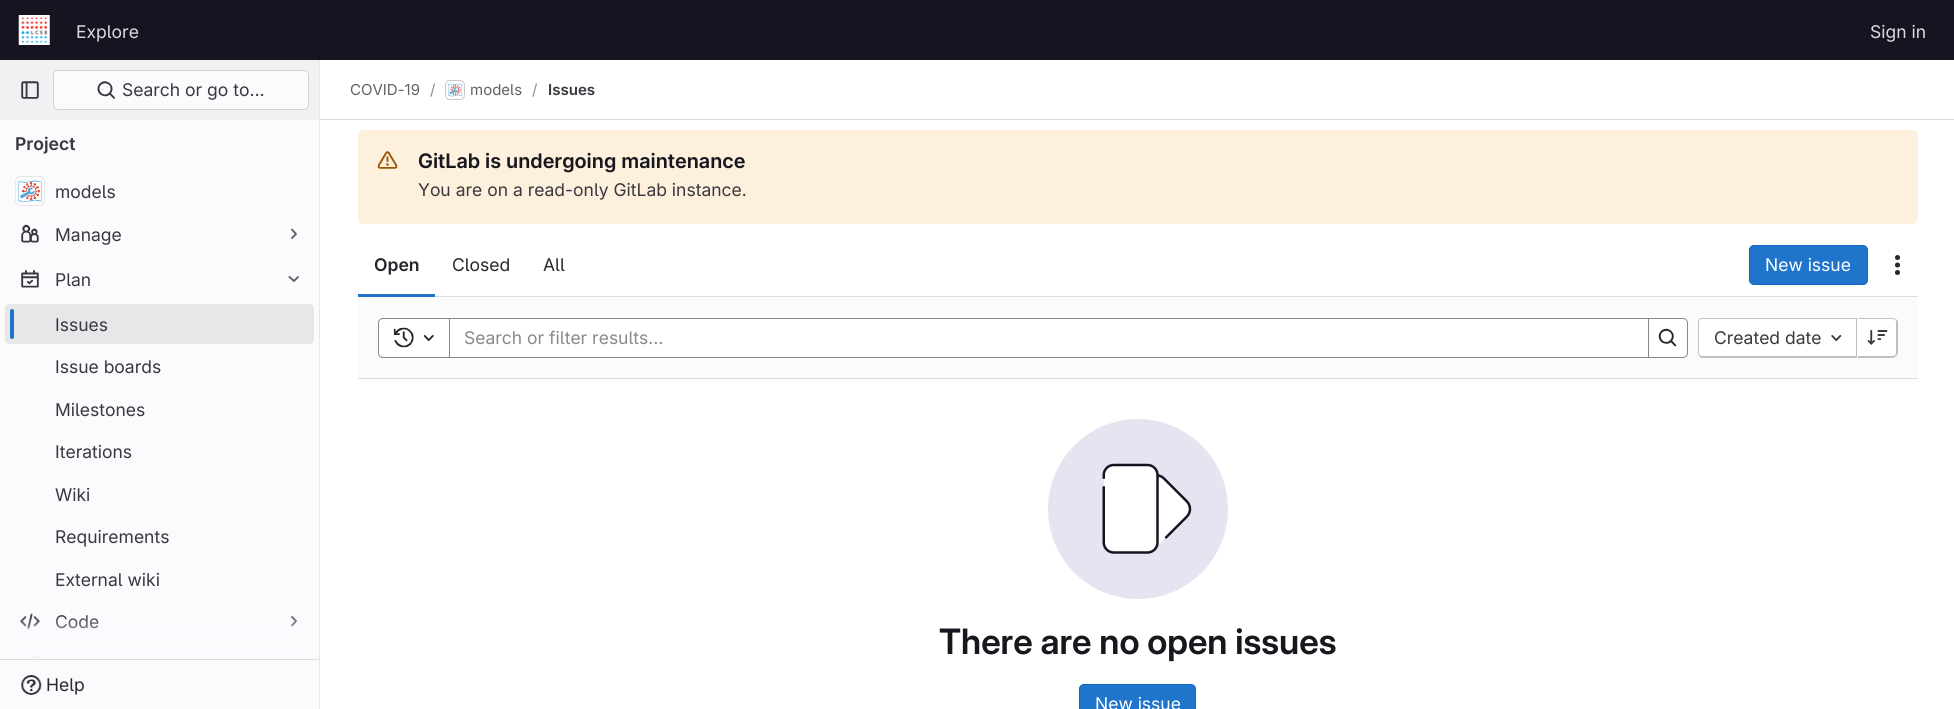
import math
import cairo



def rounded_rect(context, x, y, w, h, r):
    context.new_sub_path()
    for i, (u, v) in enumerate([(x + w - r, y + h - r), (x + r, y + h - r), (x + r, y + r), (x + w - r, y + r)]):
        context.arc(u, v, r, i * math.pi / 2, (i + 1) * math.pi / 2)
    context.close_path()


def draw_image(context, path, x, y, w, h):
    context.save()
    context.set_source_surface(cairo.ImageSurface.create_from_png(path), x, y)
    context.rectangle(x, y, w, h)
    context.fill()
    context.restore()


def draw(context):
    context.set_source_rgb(1, 1, 1)
    context.paint()
    context.set_source_rgb(23 / 255, 19 / 255, 33 / 255)
    context.rectangle(0, 0, 1954, 60)
    context.fill()
    draw_image(context, "images/1.png", 18, 15, 32, 30)
    context.set_source_rgb(251 / 255, 250 / 255, 253 / 255)
    context.rectangle(0, 120, 319, 589)
    context.fill()
    context.set_source_rgb(231 / 255, 230 / 255, 233 / 255)
    context.rectangle(319, 60, 1, 649)
    context.fill()
    context.set_source_rgb(241 / 255, 240 / 255, 243 / 255)
    context.rectangle(0, 60, 319, 60)
    context.fill()
    draw_image(context, "images/2.png", 21, 81, 18, 18)
    context.set_source_rgb(251 / 255, 250 / 255, 253 / 255)
    rounded_rect(context, 53, 70, 256, 40, 5)
    context.fill()
    rounded_rect(context, 53.5, 70.5, 255, 39, 4.5)
    context.set_source_rgba(5 / 255, 5 / 255, 6 / 255, 0.16)
    context.set_line_width(1)
    context.stroke()
    draw_image(context, "images/3.png", 97, 81, 18, 18)
    context.set_source_rgb(220 / 255, 220 / 255, 222 / 255)
    context.rectangle(0, 659, 319, 1)
    context.fill()
    draw_image(context, "images/4.png", 18, 180, 24, 22)
    rounded_rect(context, 15.5, 176.5, 29, 29, 4.5)
    context.set_source_rgb(231 / 255, 230 / 255, 233 / 255)
    context.stroke()
    draw_image(context, "images/5.png", 21, 224, 18, 19)
    context.new_path()
    context.move_to(292, 229.5)
    context.line_to(296, 234)
    context.line_to(292, 238)
    context.set_source_rgb(98 / 255, 97 / 255, 104 / 255)
    context.set_line_width(1.9)
    context.set_line_cap(cairo.LineCap.ROUND)
    context.set_line_join(cairo.LineJoin.ROUND)
    context.stroke()
    draw_image(context, "images/6.png", 21, 270, 18, 18)
    context.new_path()
    context.move_to(298, 277)
    context.line_to(294, 281)
    context.line_to(289.5, 277)
    context.stroke()
    context.set_source_rgb(231 / 255, 230 / 255, 233 / 255)
    rounded_rect(context, 5, 304, 309, 40, 5)
    context.fill()
    context.set_source_rgb(31 / 255, 117 / 255, 203 / 255)
    rounded_rect(context, 10, 309, 4, 30, 2)
    context.fill()
    draw_image(context, "images/7.png", 20, 613, 20, 17)
    context.new_path()
    context.move_to(292, 617)
    context.line_to(296, 621)
    context.line_to(292, 625.5)
    context.set_source_rgb(98 / 255, 97 / 255, 104 / 255)
    context.stroke()
    draw_image(context, "images/8.png", 29, 656, 11, 3)
    draw_image(context, "images/9.png", 21, 675, 21, 20)
    context.set_source_rgb(220 / 255, 220 / 255, 222 / 255)
    context.rectangle(320, 119, 1634, 1)
    context.fill()
    rounded_rect(context, 445.5, 80.5, 19, 19, 4.5)
    context.set_line_width(1)
    context.set_line_cap(cairo.LineCap.BUTT)
    context.set_line_join(cairo.LineJoin.MITER)
    context.stroke()
    draw_image(context, "images/10.png", 447, 83, 16, 14)
    rounded_rect(context, 445.5, 80.5, 19, 19, 4.5)
    context.set_source_rgba(5 / 255, 5 / 255, 6 / 255, 0.08)
    context.stroke()
    context.set_source_rgb(253 / 255, 241 / 255, 221 / 255)
    rounded_rect(context, 358, 130, 1560, 94, 5)
    context.fill()
    draw_image(context, "images/11.png", 377, 151, 21, 18)
    context.set_source_rgb(220 / 255, 220 / 255, 222 / 255)
    context.rectangle(435, 296, 1483, 1)
    context.fill()
    context.set_source_rgb(31 / 255, 117 / 255, 203 / 255)
    context.rectangle(358, 294, 77, 3)
    context.fill()
    rounded_rect(context, 1749.5, 245.5, 118, 39, 4.5)
    context.fill_preserve()
    context.set_source_rgb(16 / 255, 104 / 255, 191 / 255)
    context.stroke()
    draw_image(context, "images/12.png", 1895, 255, 5, 20)
    context.set_source_rgb(251 / 255, 250 / 255, 253 / 255)
    context.rectangle(358, 298, 1560, 80)
    context.fill()
    context.set_source_rgb(220 / 255, 220 / 255, 222 / 255)
    context.rectangle(358, 378, 1560, 1)
    context.fill()
    context.set_source_rgb(1, 1, 1)
    context.rectangle(449.5, 318.5, 1199, 39)
    context.fill_preserve()
    context.set_source_rgb(137 / 255, 136 / 255, 141 / 255)
    context.stroke()
    context.set_source_rgb(1, 1, 1)
    context.new_path()
    context.move_to(383, 318.5)
    context.line_to(449.5, 318.5)
    context.line_to(449.5, 357.5)
    context.line_to(383, 357.5)
    context.curve_to(380.5, 357.5, 378.5, 355.5, 378.5, 353)
    context.line_to(378.5, 323)
    context.curve_to(378.5, 320.5, 380.5, 318.5, 383, 318.5)
    context.close_path()
    context.fill_preserve()
    context.set_source_rgb(137 / 255, 136 / 255, 141 / 255)
    context.stroke()
    draw_image(context, "images/13.png", 393, 327, 21, 21)
    draw_image(context, "images/14.png", 423, 335, 11, 6)
    context.set_source_rgb(1, 1, 1)
    context.new_path()
    context.move_to(1648.5, 318.5)
    context.line_to(1683, 318.5)
    context.curve_to(1685.5, 318.5, 1687.5, 320.5, 1687.5, 323)
    context.line_to(1687.5, 353)
    context.curve_to(1687.5, 355.5, 1685.5, 357.5, 1683, 357.5)
    context.line_to(1648.5, 357.5)
    context.close_path()
    context.fill_preserve()
    context.set_source_rgb(137 / 255, 136 / 255, 141 / 255)
    context.stroke()
    draw_image(context, "images/15.png", 1658, 328, 19, 19)
    context.set_source_rgb(1, 1, 1)
    context.new_path()
    context.move_to(1703, 319)
    context.line_to(1856, 319)
    context.line_to(1856, 356)
    context.line_to(1703, 356)
    context.curve_to(1701, 356, 1699, 354, 1699, 352)
    context.line_to(1699, 323)
    context.curve_to(1699, 321, 1701, 319, 1703, 319)
    context.close_path()
    context.fill()
    context.set_source_rgb(191 / 255, 191 / 255, 195 / 255)
    context.set_fill_rule(cairo.FillRule.EVEN_ODD)
    context.new_path()
    context.move_to(1702, 318)
    context.line_to(1856, 318)
    context.line_to(1856, 358)
    context.line_to(1702, 358)
    context.curve_to(1700, 358, 1698, 355, 1698, 352)
    context.line_to(1698, 322)
    context.curve_to(1698, 320, 1700, 318, 1702, 318)
    context.close_path()
    context.move_to(1702, 319)
    context.line_to(1856, 319)
    context.line_to(1856, 356)
    context.line_to(1702, 356)
    context.curve_to(1700, 356, 1699, 355, 1699, 352)
    context.line_to(1699, 322)
    context.curve_to(1699, 320, 1700, 319, 1702, 319)
    context.close_path()
    context.fill()
    draw_image(context, "images/16.png", 1831, 335, 11, 6)
    context.set_source_rgb(1, 1, 1)
    context.new_path()
    context.move_to(1858, 319)
    context.line_to(1892, 319)
    context.curve_to(1894, 319, 1896, 321, 1896, 323)
    context.line_to(1896, 352)
    context.curve_to(1896, 354, 1894, 356, 1892, 356)
    context.line_to(1858, 356)
    context.close_path()
    context.fill()
    context.set_source_rgb(191 / 255, 191 / 255, 195 / 255)
    context.new_path()
    context.move_to(1858, 318)
    context.line_to(1892, 318)
    context.curve_to(1895, 318, 1898, 320, 1898, 322)
    context.line_to(1898, 352)
    context.curve_to(1898, 355, 1895, 358, 1892, 358)
    context.line_to(1858, 358)
    context.close_path()
    context.move_to(1858, 319)
    context.line_to(1892, 319)
    context.curve_to(1895, 319, 1896, 320, 1896, 322)
    context.line_to(1896, 352)
    context.curve_to(1896, 355, 1895, 356, 1892, 356)
    context.line_to(1858, 356)
    context.close_path()
    context.fill()
    context.rectangle(1856, 318, 1, 40)
    context.fill()
    draw_image(context, "images/17.png", 1867, 330, 21, 15)
    draw_image(context, "images/18.png", 1048, 419, 180, 180)
    context.set_source_rgb(31 / 255, 117 / 255, 203 / 255)
    rounded_rect(context, 1079.5, 684.5, 116, 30, 4.5)
    context.fill_preserve()
    context.set_source_rgb(16 / 255, 104 / 255, 191 / 255)
    context.stroke()
    context.select_font_face("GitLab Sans")
    context.set_font_size(17.5)
    context.set_source_rgb(220 / 255, 220 / 255, 222 / 255)
    context.move_to(76, 38)
    context.show_text("Explore")
    context.move_to(1870, 38)
    context.show_text("Sign in")
    context.set_source_rgb(58 / 255, 56 / 255, 63 / 255)
    context.move_to(122, 96)
    context.show_text("Search or go to…")
    context.select_font_face("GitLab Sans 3 SemiBold")
    context.move_to(15, 150)
    context.show_text("Project")
    context.select_font_face("GitLab Sans")
    context.move_to(55, 198)
    context.show_text("models")
    context.move_to(55, 241)
    context.show_text("Manage")
    context.move_to(55, 286)
    context.show_text("Plan")
    context.move_to(55, 331)
    context.show_text("Issues")
    context.move_to(55, 373)
    context.show_text("Issue boards")
    context.move_to(55, 416)
    context.show_text("Milestones")
    context.move_to(55, 458)
    context.show_text("Iterations")
    context.move_to(55, 501)
    context.show_text("Wiki")
    context.move_to(55, 543)
    context.show_text("Requirements")
    context.move_to(55, 586)
    context.show_text("External wiki")
    context.move_to(55, 628)
    context.show_text("Code")
    gradient = cairo.LinearGradient(159, 614, 159, 659)
    gradient.add_color_stop_rgba(0, 251 / 255, 250 / 255, 253 / 255, 0)
    gradient.add_color_stop_rgba(1, 251 / 255, 250 / 255, 253 / 255, 1)
    context.set_source(gradient)
    context.rectangle(20, 615, 277, 44)
    context.fill()
    context.set_source_rgb(40 / 255, 39 / 255, 45 / 255)
    context.move_to(46, 691)
    context.show_text("Help")
    context.set_font_size(15)
    context.set_source_rgb(98 / 255, 97 / 255, 104 / 255)
    context.move_to(350, 95)
    context.show_text("COVID-19")
    context.set_source_rgb(137 / 255, 136 / 255, 141 / 255)
    context.move_to(430, 95)
    context.show_text("/")
    context.set_source_rgb(98 / 255, 97 / 255, 104 / 255)
    context.move_to(470, 95)
    context.show_text("models")
    context.set_source_rgb(137 / 255, 136 / 255, 141 / 255)
    context.move_to(532, 95)
    context.show_text("/")
    context.select_font_face("GitLab Sans 3 SemiBold")
    context.set_source_rgb(58 / 255, 56 / 255, 63 / 255)
    context.move_to(548, 95)
    context.show_text("Issues")
    context.select_font_face("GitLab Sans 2 SemiBold")
    context.set_font_size(20)
    context.set_source_rgb(24 / 255, 23 / 255, 29 / 255)
    context.move_to(418, 168)
    context.show_text("GitLab is undergoing maintenance")
    context.select_font_face("GitLab Sans")
    context.set_font_size(17.5)
    context.set_source_rgb(58 / 255, 56 / 255, 63 / 255)
    context.move_to(418, 196)
    context.show_text("You are on a read-only GitLab instance.")
    context.select_font_face("GitLab Sans 3 SemiBold")
    context.set_source_rgb(40 / 255, 39 / 255, 45 / 255)
    context.move_to(374, 271)
    context.show_text("Open")
    context.select_font_face("GitLab Sans")
    context.move_to(452, 271)
    context.show_text("Closed")
    context.move_to(543, 271)
    context.show_text("All")
    context.set_source_rgb(1, 1, 1)
    context.move_to(1765, 271)
    context.show_text("New issue")
    context.set_source_rgb(137 / 255, 136 / 255, 141 / 255)
    context.move_to(464, 344)
    context.show_text("Search or filter results…")
    context.set_source_rgb(58 / 255, 56 / 255, 63 / 255)
    context.move_to(1714, 344)
    context.show_text("Created date")
    context.select_font_face("GitLab Sans SemiBold")
    context.set_font_size(35)
    context.set_source_rgb(24 / 255, 23 / 255, 29 / 255)
    context.move_to(939, 654)
    context.show_text("There are no open issues")
    context.select_font_face("GitLab Sans")
    context.set_font_size(17.5)
    context.set_source_rgb(1, 1, 1)
    context.move_to(1095, 710)
    context.show_text("New issue")


surface = cairo.ImageSurface(cairo.Format.RGB24, 1954, 709)
context = cairo.Context(surface)
options = cairo.FontOptions()
options.set_hint_metrics(cairo.HintMetrics.OFF)
options.set_hint_style(cairo.HintStyle.NONE)
context.set_font_options(options)
context.set_miter_limit(4)
draw(context)
surface.write_to_png("out.png")
